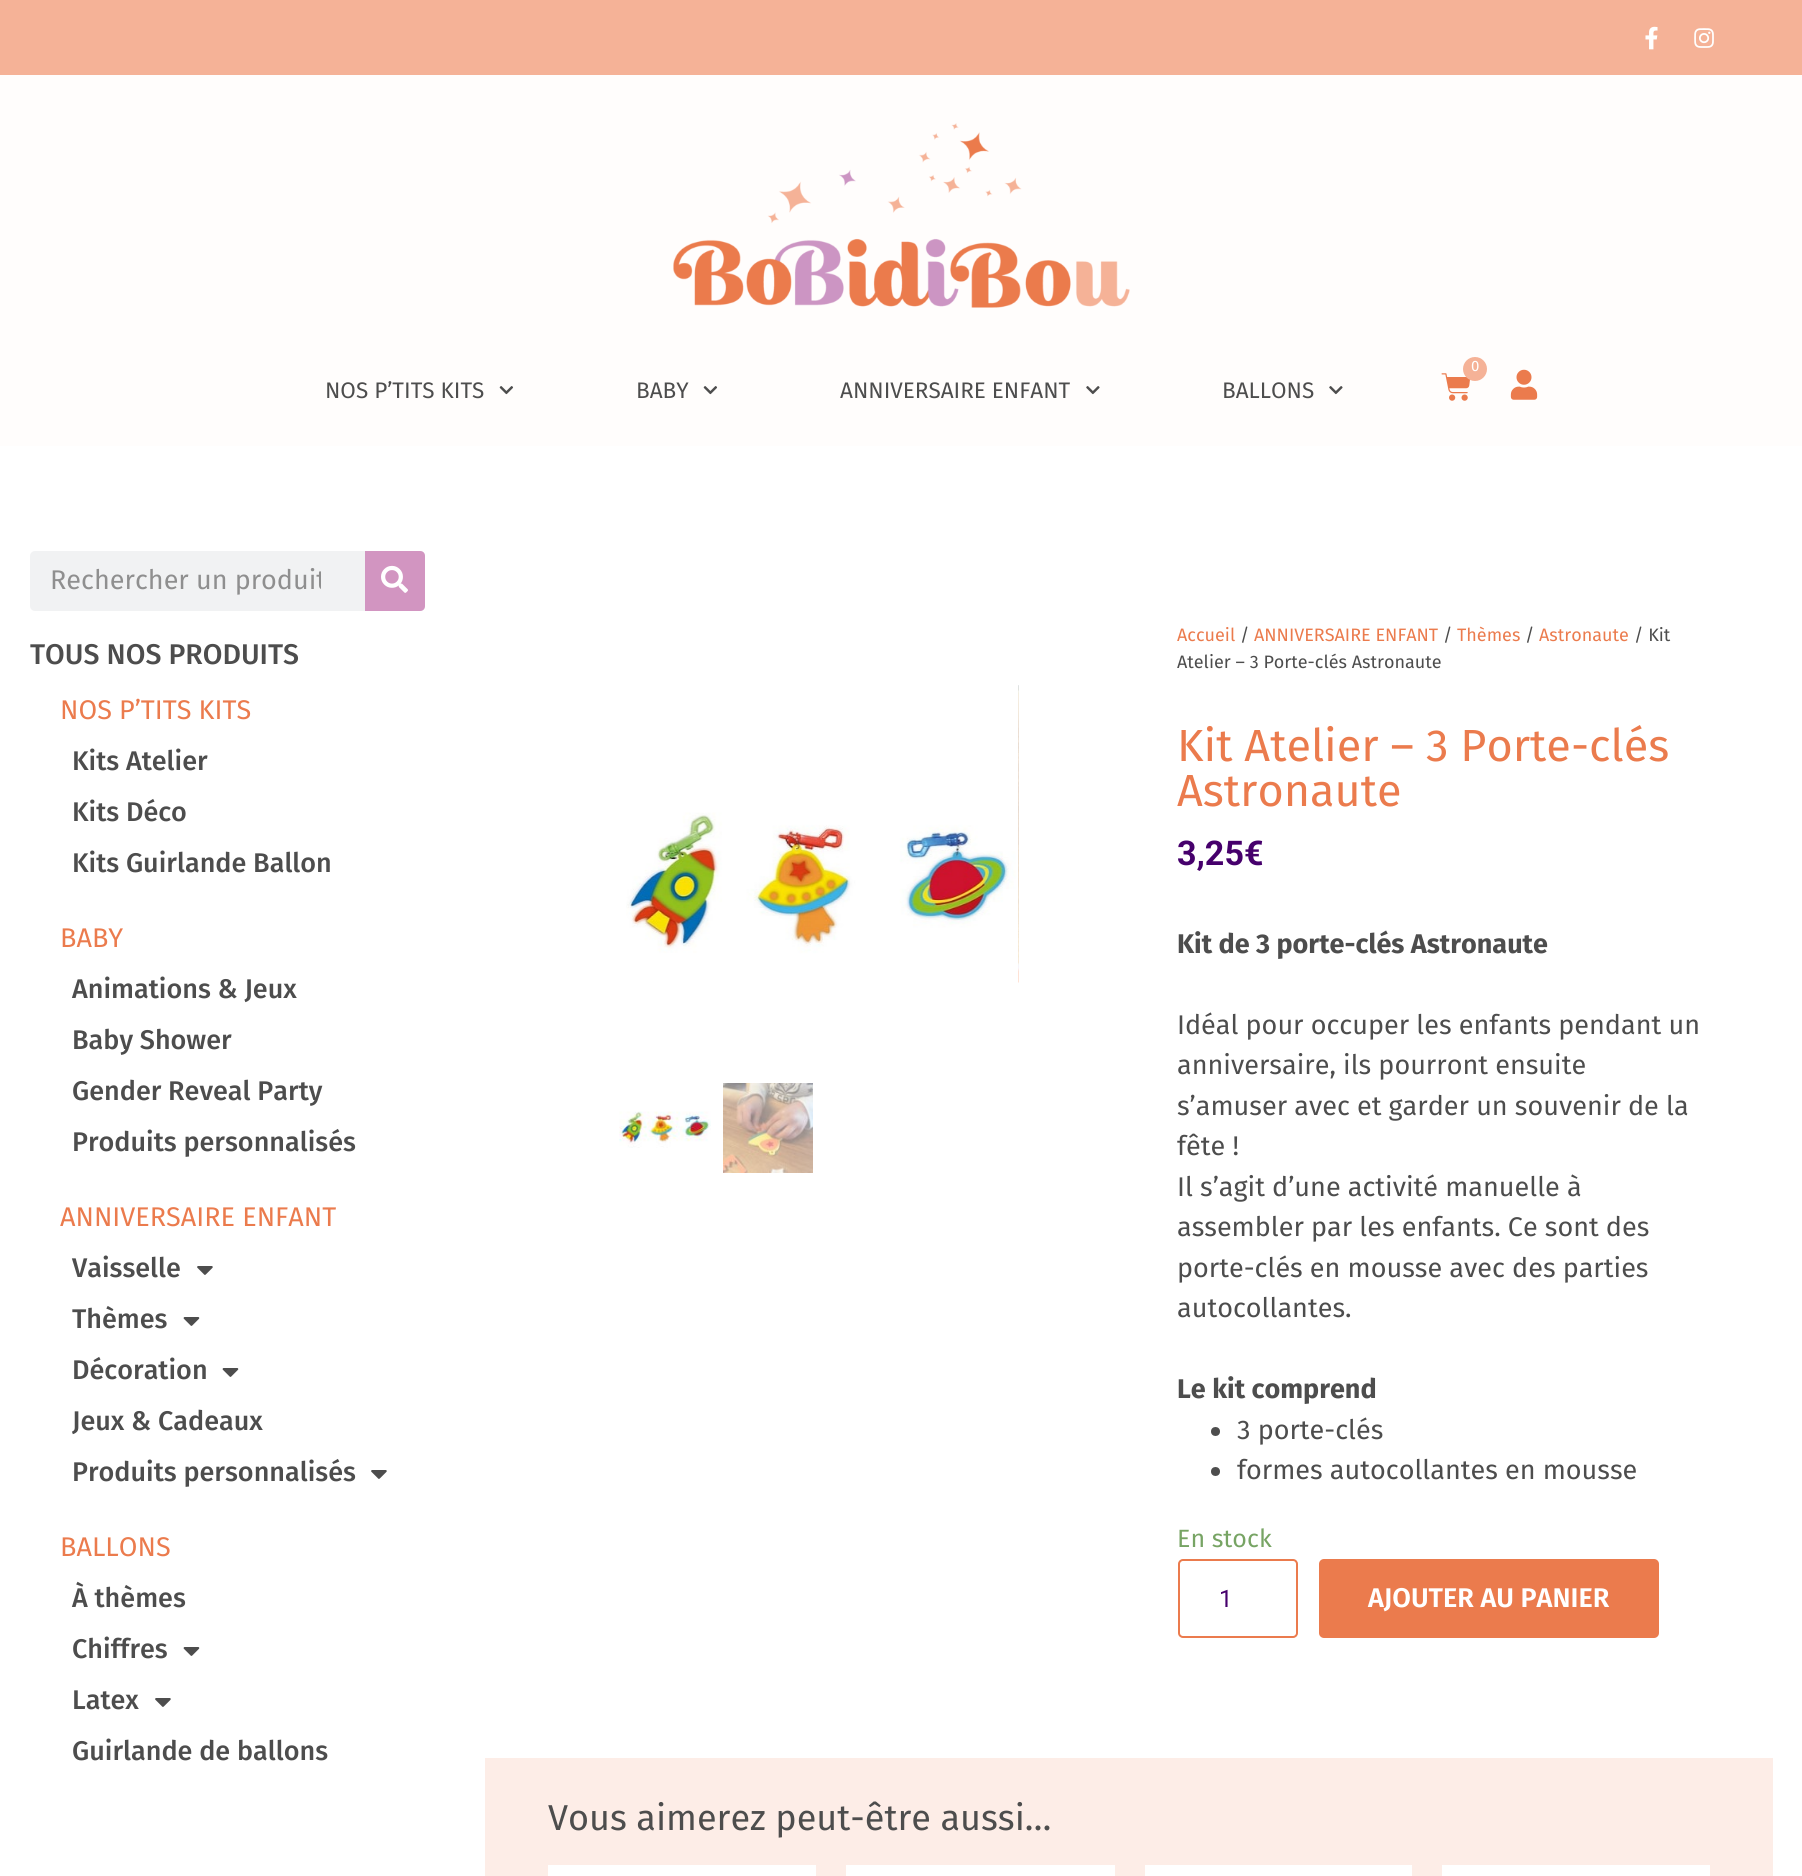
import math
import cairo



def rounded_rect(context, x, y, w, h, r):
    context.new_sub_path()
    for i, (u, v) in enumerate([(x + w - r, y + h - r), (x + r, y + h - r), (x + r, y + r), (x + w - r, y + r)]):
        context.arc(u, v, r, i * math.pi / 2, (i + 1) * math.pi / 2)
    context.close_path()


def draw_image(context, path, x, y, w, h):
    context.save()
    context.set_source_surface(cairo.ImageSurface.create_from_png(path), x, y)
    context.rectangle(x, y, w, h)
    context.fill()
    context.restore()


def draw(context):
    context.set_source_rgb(1, 1, 1)
    context.paint()
    context.set_source_rgb(245 / 255, 178 / 255, 151 / 255)
    context.rectangle(0, 0, 1802, 75)
    context.fill()
    draw_image(context, "images/1.png", 1645, 26, 13, 24)
    draw_image(context, "images/2.png", 1694, 28, 20, 20)
    context.set_source_rgb(1, 253 / 255, 252 / 255)
    context.rectangle(0, 75, 1802, 371)
    context.fill()
    draw_image(context, "images/3.png", 673, 123, 457, 185)
    draw_image(context, "images/4.png", 1441, 373, 30, 28)
    context.set_source_rgb(245 / 255, 178 / 255, 151 / 255)
    context.arc(1475, 369, 12, 0, 2 * math.pi)
    context.fill()
    draw_image(context, "images/5.png", 499, 386, 15, 9)
    draw_image(context, "images/5.png", 703, 386, 15, 9)
    draw_image(context, "images/6.png", 1086, 386, 14, 9)
    draw_image(context, "images/6.png", 1329, 386, 14, 9)
    draw_image(context, "images/7.png", 1510, 369, 28, 31)
    context.set_source_rgb(241 / 255, 242 / 255, 243 / 255)
    rounded_rect(context, 30, 551, 395, 60, 5)
    context.fill()
    context.set_source_rgb(210 / 255, 149 / 255, 193 / 255)
    context.new_path()
    context.move_to(365, 551)
    context.line_to(420, 551)
    context.curve_to(423, 551, 425, 553, 425, 556)
    context.line_to(425, 606)
    context.curve_to(425, 609, 423, 611, 420, 611)
    context.line_to(365, 611)
    context.close_path()
    context.fill()
    draw_image(context, "images/8.png", 381, 565, 27, 28)
    draw_image(context, "images/9.png", 197, 1266, 16, 9)
    draw_image(context, "images/10.png", 183, 1317, 17, 9)
    draw_image(context, "images/10.png", 222, 1368, 17, 9)
    draw_image(context, "images/9.png", 371, 1470, 16, 9)
    draw_image(context, "images/10.png", 183, 1647, 17, 9)
    draw_image(context, "images/9.png", 155, 1698, 16, 9)
    draw_image(context, "images/12.png", 1018, 685, 1, 298)
    draw_image(context, "images/11.png", 626, 685, 393, 298)
    draw_image(context, "images/13.png", 619, 1111, 92, 37)
    draw_image(context, "images/14.png", 723, 1083, 90, 90)
    context.set_source_rgb(77 / 255, 77 / 255, 77 / 255)
    context.arc(1215.5, 1431.5, 4.5, 0, 2 * math.pi)
    context.fill()
    context.arc(1215.5, 1471.5, 4.5, 0, 2 * math.pi)
    context.fill()
    rounded_rect(context, 1179, 1560, 118, 77, 4)
    context.set_source_rgb(235 / 255, 123 / 255, 77 / 255)
    context.stroke()
    rounded_rect(context, 1319, 1559, 340, 79, 5)
    context.fill()
    context.set_source_rgb(253 / 255, 237 / 255, 231 / 255)
    context.rectangle(485, 1758, 1288, 118)
    context.fill()
    context.set_source_rgb(1, 1, 1)
    context.rectangle(548, 1865, 268, 11)
    context.fill()
    context.rectangle(846, 1865, 269, 11)
    context.fill()
    context.rectangle(1145, 1865, 267, 11)
    context.fill()
    context.rectangle(1442, 1865, 268, 11)
    context.fill()
    context.select_font_face("Fira Sans")
    context.set_font_size(15)
    context.move_to(1471, 371)
    context.show_text("0")
    context.set_font_size(22.5)
    context.set_source_rgb(77 / 255, 77 / 255, 77 / 255)
    context.move_to(325, 398)
    context.show_text("NOS P’TITS KITS")
    context.move_to(636, 398)
    context.show_text("BABY")
    context.move_to(840, 398)
    context.show_text("ANNIVERSAIRE ENFANT")
    context.move_to(1222, 398)
    context.show_text("BALLONS")
    context.save()
    context.rectangle(50, 564, 271, 33)
    context.clip()
    context.set_font_size(27)
    context.set_source_rgb(143 / 255, 143 / 255, 143 / 255)
    context.move_to(50, 589)
    context.show_text("Rechercher un produit")
    context.restore()
    context.select_font_face("Fira Sans Medium")
    context.set_font_size(28.5)
    context.move_to(30, 664)
    context.show_text("TOUS NOS PRODUITS")
    context.select_font_face("Fira Sans")
    context.set_font_size(27)
    context.set_source_rgb(235 / 255, 123 / 255, 77 / 255)
    context.move_to(60, 719)
    context.show_text("NOS P’TITS KITS")
    context.select_font_face("Fira Sans Medium")
    context.set_source_rgb(77 / 255, 77 / 255, 77 / 255)
    context.move_to(72, 770)
    context.show_text("Kits Atelier")
    context.move_to(72, 821)
    context.show_text("Kits Déco")
    context.move_to(72, 872)
    context.show_text("Kits Guirlande Ballon")
    context.select_font_face("Fira Sans")
    context.set_source_rgb(235 / 255, 123 / 255, 77 / 255)
    context.move_to(60, 947)
    context.show_text("BABY")
    context.select_font_face("Fira Sans Medium")
    context.set_source_rgb(77 / 255, 77 / 255, 77 / 255)
    context.move_to(72, 998)
    context.show_text("Animations & Jeux")
    context.move_to(72, 1049)
    context.show_text("Baby Shower")
    context.move_to(72, 1100)
    context.show_text("Gender Reveal Party")
    context.move_to(72, 1151)
    context.show_text("Produits personnalisés")
    context.select_font_face("Fira Sans")
    context.set_source_rgb(235 / 255, 123 / 255, 77 / 255)
    context.move_to(60, 1226)
    context.show_text("ANNIVERSAIRE ENFANT")
    context.select_font_face("Fira Sans Medium")
    context.set_source_rgb(77 / 255, 77 / 255, 77 / 255)
    context.move_to(72, 1277)
    context.show_text("Vaisselle")
    context.move_to(72, 1328)
    context.show_text("Thèmes")
    context.move_to(72, 1379)
    context.show_text("Décoration")
    context.move_to(72, 1430)
    context.show_text("Jeux & Cadeaux")
    context.move_to(72, 1481)
    context.show_text("Produits personnalisés")
    context.select_font_face("Fira Sans")
    context.set_source_rgb(235 / 255, 123 / 255, 77 / 255)
    context.move_to(60, 1556)
    context.show_text("BALLONS")
    context.select_font_face("Fira Sans Medium")
    context.set_source_rgb(77 / 255, 77 / 255, 77 / 255)
    context.move_to(72, 1607)
    context.show_text("À thèmes")
    context.move_to(72, 1658)
    context.show_text("Chiffres")
    context.move_to(72, 1709)
    context.show_text("Latex")
    context.move_to(72, 1760)
    context.show_text("Guirlande de ballons")
    context.select_font_face("Fira Sans")
    context.set_font_size(18)
    context.set_source_rgb(235 / 255, 123 / 255, 77 / 255)
    context.move_to(1177, 641)
    context.show_text("Accueil")
    context.set_source_rgb(77 / 255, 77 / 255, 77 / 255)
    context.move_to(1240, 641)
    context.show_text("/")
    context.set_source_rgb(235 / 255, 123 / 255, 77 / 255)
    context.move_to(1254, 641)
    context.show_text("ANNIVERSAIRE ENFANT")
    context.set_source_rgb(77 / 255, 77 / 255, 77 / 255)
    context.move_to(1443, 641)
    context.show_text("/")
    context.set_source_rgb(235 / 255, 123 / 255, 77 / 255)
    context.move_to(1457, 641)
    context.show_text("Thèmes")
    context.set_source_rgb(77 / 255, 77 / 255, 77 / 255)
    context.move_to(1525, 641)
    context.show_text("/")
    context.set_source_rgb(235 / 255, 123 / 255, 77 / 255)
    context.move_to(1539, 641)
    context.show_text("Astronaute")
    context.set_source_rgb(77 / 255, 77 / 255, 77 / 255)
    context.move_to(1634, 641)
    context.show_text("/ Kit")
    context.move_to(1177, 668)
    context.show_text("Atelier – 3 Porte-clés Astronaute")
    context.set_font_size(45)
    context.set_source_rgb(235 / 255, 123 / 255, 77 / 255)
    context.move_to(1177, 761)
    context.show_text("Kit Atelier – 3 Porte-clés")
    context.move_to(1177, 806)
    context.show_text("Astronaute")
    context.select_font_face("Roboto", cairo.FontSlant.NORMAL, cairo.FontWeight.BOLD)
    context.set_font_size(34)
    context.set_source_rgb(70 / 255, 0, 108 / 255)
    context.move_to(1177, 865)
    context.show_text("3,25€")
    context.select_font_face("Fira Sans", cairo.FontSlant.NORMAL, cairo.FontWeight.BOLD)
    context.set_font_size(27)
    context.set_source_rgb(77 / 255, 77 / 255, 77 / 255)
    context.move_to(1177, 953)
    context.show_text("Kit de 3 porte-clés Astronaute")
    context.select_font_face("Fira Sans")
    context.move_to(1177, 1034)
    context.show_text("Idéal pour occuper les enfants pendant un")
    context.move_to(1177, 1074)
    context.show_text("anniversaire, ils pourront ensuite")
    context.move_to(1177, 1115)
    context.show_text("s’amuser avec et garder un souvenir de la")
    context.move_to(1177, 1155)
    context.show_text("fête !")
    context.move_to(1177, 1196)
    context.show_text("Il s’agit d’une activité manuelle à")
    context.move_to(1177, 1236)
    context.show_text("assembler par les enfants. Ce sont des")
    context.move_to(1177, 1277)
    context.show_text("porte-clés en mousse avec des parties")
    context.move_to(1177, 1317)
    context.show_text("autocollantes.")
    context.select_font_face("Fira Sans", cairo.FontSlant.NORMAL, cairo.FontWeight.BOLD)
    context.move_to(1177, 1398)
    context.show_text("Le kit comprend")
    context.select_font_face("Fira Sans")
    context.move_to(1237, 1439)
    context.show_text("3 porte-clés")
    context.move_to(1237, 1479)
    context.show_text("formes autocollantes en mousse")
    context.set_font_size(25)
    context.set_source_rgb(119 / 255, 164 / 255, 100 / 255)
    context.move_to(1177, 1547)
    context.show_text("En stock")
    context.select_font_face("Roboto")
    context.set_font_size(24)
    context.set_source_rgb(70 / 255, 0, 108 / 255)
    context.move_to(1219, 1607)
    context.show_text("1")
    context.select_font_face("Fira Sans SemiBold")
    context.set_font_size(27)
    context.set_source_rgb(1, 1, 1)
    context.move_to(1368, 1607)
    context.show_text("AJOUTER AU PANIER")
    context.select_font_face("Fira Sans")
    context.set_font_size(36)
    context.set_source_rgb(77 / 255, 77 / 255, 77 / 255)
    context.move_to(548, 1830)
    context.show_text("Vous aimerez peut-être aussi…")


surface = cairo.ImageSurface(cairo.Format.RGB24, 1802, 1876)
context = cairo.Context(surface)
options = cairo.FontOptions()
options.set_hint_metrics(cairo.HintMetrics.OFF)
options.set_hint_style(cairo.HintStyle.NONE)
context.set_font_options(options)
context.set_miter_limit(4)
draw(context)
surface.write_to_png("out.png")
